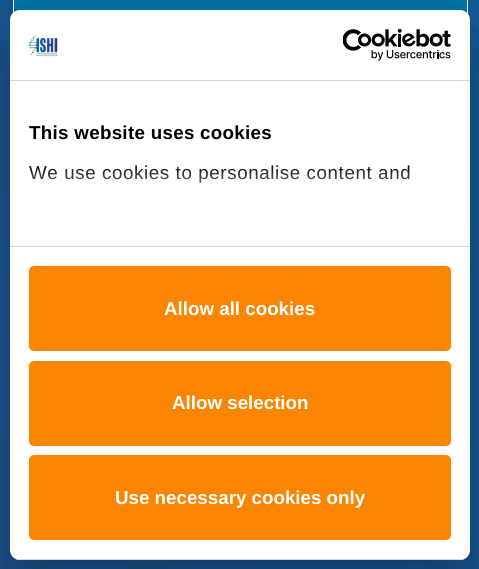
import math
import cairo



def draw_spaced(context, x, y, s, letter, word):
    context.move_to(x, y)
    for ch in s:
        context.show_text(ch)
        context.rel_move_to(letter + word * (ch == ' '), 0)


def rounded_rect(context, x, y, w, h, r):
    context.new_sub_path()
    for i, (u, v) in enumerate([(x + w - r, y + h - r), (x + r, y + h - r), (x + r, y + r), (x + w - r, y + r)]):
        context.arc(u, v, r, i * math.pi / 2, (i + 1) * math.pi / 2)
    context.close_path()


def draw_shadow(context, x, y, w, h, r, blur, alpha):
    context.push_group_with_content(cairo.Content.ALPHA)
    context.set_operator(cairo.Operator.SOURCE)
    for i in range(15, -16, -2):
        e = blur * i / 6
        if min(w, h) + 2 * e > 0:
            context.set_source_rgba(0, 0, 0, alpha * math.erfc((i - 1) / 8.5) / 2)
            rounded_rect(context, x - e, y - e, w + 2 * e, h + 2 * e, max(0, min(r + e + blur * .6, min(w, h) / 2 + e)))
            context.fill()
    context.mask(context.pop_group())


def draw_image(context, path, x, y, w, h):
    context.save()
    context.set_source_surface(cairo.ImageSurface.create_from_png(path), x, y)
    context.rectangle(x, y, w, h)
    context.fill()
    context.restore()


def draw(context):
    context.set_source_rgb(1, 1, 1)
    context.paint()
    draw_image(context, "images/1.png", 0, 0, 479, 569)
    context.set_source_rgb(0, 117 / 255, 168 / 255)
    rounded_rect(context, 13.5, -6.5, 454, 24, 5.5)
    context.fill_preserve()
    context.set_source_rgb(1, 1, 1)
    context.set_line_width(1)
    context.stroke()
    context.set_source_rgb(0, 0, 0)
    draw_shadow(context, 10, 50, 460, 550, 10, 42.5, 0.3)
    context.set_source_rgb(1, 1, 1)
    rounded_rect(context, 10, 10, 460, 550, 10)
    context.fill()
    context.set_source_rgb(214 / 255, 214 / 255, 214 / 255)
    context.rectangle(10, 80, 460, 1)
    context.fill()
    draw_image(context, "images/2.png", 28, 35, 30, 22)
    draw_image(context, "images/3.png", 343, 29, 108, 32)
    context.rectangle(10, 246, 460, 1)
    context.fill()
    context.save()
    rounded_rect(context, 10, 10, 460, 550, 10)
    context.clip()
    context.rectangle(10, 559, 460, 1)
    context.fill()
    context.restore()
    context.set_source_rgb(250 / 255, 133 / 255, 3 / 255)
    rounded_rect(context, 30.5, 267.5, 419, 82, 3.5)
    context.fill_preserve()
    context.set_line_width(3)
    context.stroke()
    rounded_rect(context, 30.5, 362.5, 419, 82, 3.5)
    context.fill_preserve()
    context.stroke()
    rounded_rect(context, 30.5, 456.5, 419, 82, 3.5)
    context.fill_preserve()
    context.stroke()
    context.select_font_face("Liberation Sans", cairo.FontSlant.NORMAL, cairo.FontWeight.BOLD)
    context.set_font_size(18.75)
    context.set_source_rgb(0, 0, 0)
    draw_spaced(context, 29, 139, "This website uses cookies", 0.3, 0)
    context.select_font_face("Liberation Sans")
    draw_spaced(context, 29, 179, "We use cookies to personalise content and", 0.6, 0)
    gradient = cairo.LinearGradient(232, 246, 232, 164)
    gradient.add_color_stop_rgba(0, 1, 1, 1, 1)
    gradient.add_color_stop_rgba(0.5, 1, 1, 1, 0.8)
    gradient.add_color_stop_rgba(1, 1, 1, 1, 0)
    context.set_source(gradient)
    context.rectangle(29, 165, 381, 18)
    context.fill()
    context.select_font_face("Liberation Sans", cairo.FontSlant.NORMAL, cairo.FontWeight.BOLD)
    context.set_source_rgb(1, 1, 1)
    context.move_to(164, 315)
    context.show_text("Allow all cookies")
    context.move_to(172, 409)
    context.show_text("Allow selection")
    context.move_to(115, 504)
    context.show_text("Use necessary cookies only")


surface = cairo.ImageSurface(cairo.Format.RGB24, 479, 569)
context = cairo.Context(surface)
options = cairo.FontOptions()
options.set_hint_metrics(cairo.HintMetrics.OFF)
options.set_hint_style(cairo.HintStyle.NONE)
context.set_font_options(options)
context.set_miter_limit(4)
draw(context)
surface.write_to_png("out.png")
